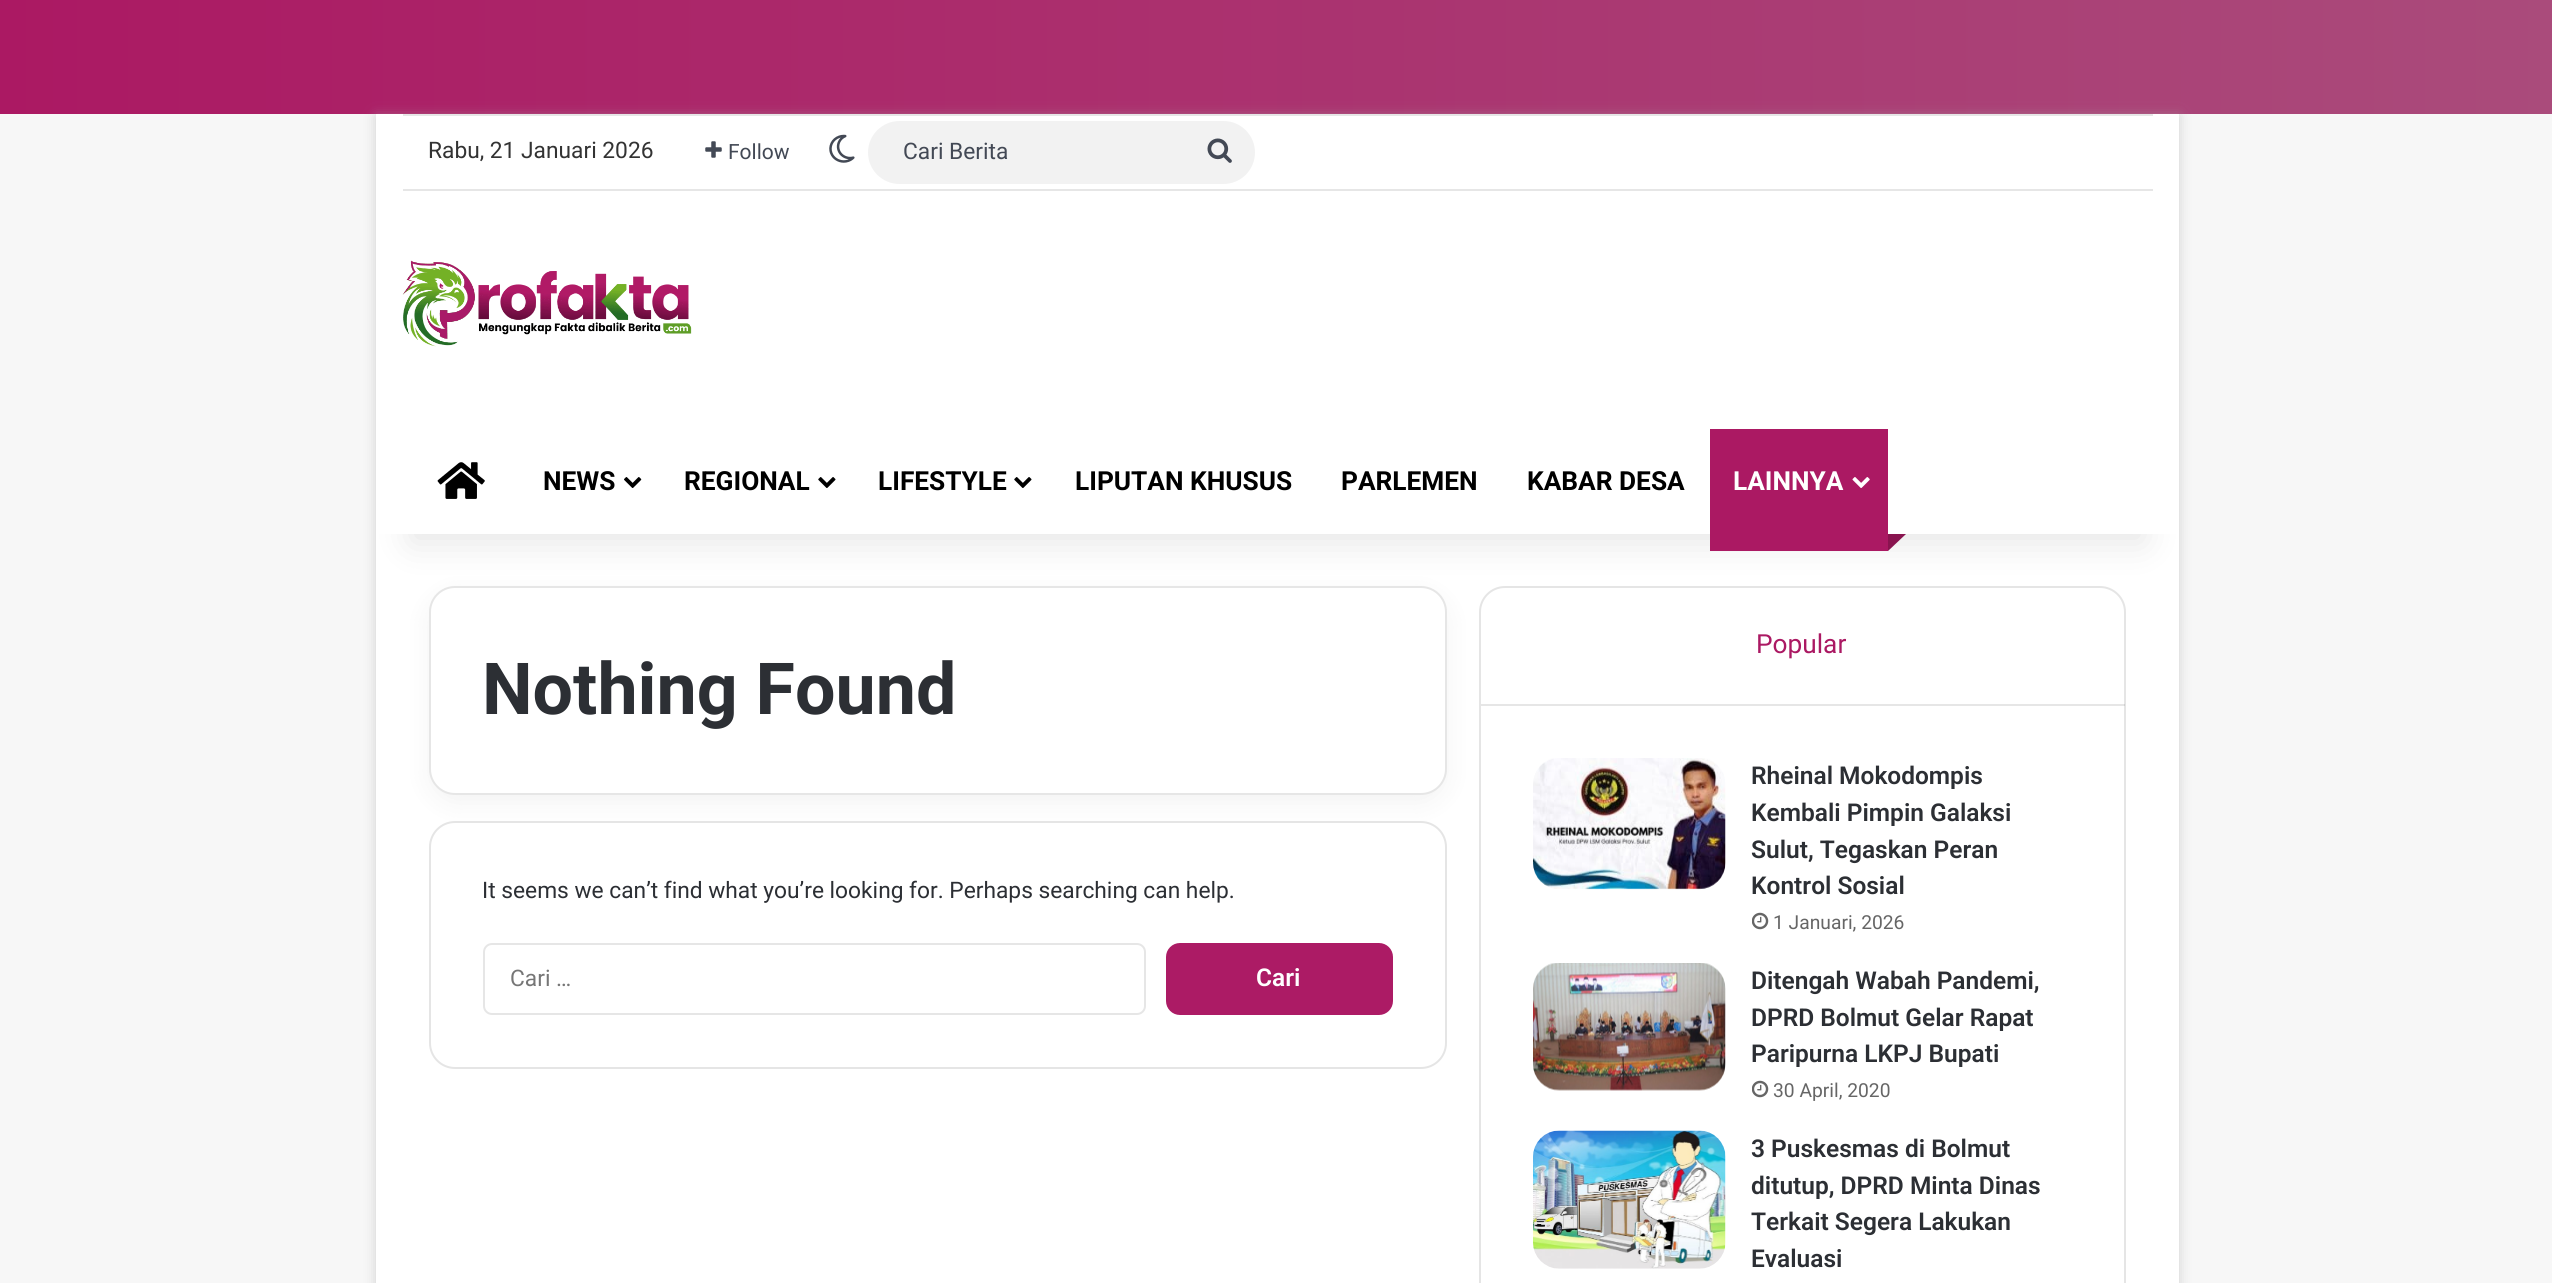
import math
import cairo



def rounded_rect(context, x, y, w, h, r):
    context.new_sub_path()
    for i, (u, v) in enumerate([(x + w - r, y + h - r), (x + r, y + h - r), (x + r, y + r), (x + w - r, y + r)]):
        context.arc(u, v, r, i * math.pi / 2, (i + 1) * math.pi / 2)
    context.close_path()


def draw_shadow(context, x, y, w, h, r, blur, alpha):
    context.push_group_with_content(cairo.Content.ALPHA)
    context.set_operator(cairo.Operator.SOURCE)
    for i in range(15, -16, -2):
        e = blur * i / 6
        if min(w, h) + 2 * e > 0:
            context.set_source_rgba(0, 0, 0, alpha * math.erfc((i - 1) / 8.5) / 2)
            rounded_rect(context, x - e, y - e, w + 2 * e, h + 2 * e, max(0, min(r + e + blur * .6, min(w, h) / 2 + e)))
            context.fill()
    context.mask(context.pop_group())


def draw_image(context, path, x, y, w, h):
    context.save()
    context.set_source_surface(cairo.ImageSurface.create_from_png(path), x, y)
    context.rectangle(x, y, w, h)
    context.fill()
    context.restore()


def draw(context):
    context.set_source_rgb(247 / 255, 247 / 255, 247 / 255)
    context.paint()
    gradient = cairo.LinearGradient(0, 57, 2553, 57)
    gradient.add_color_stop_rgba(0, 171 / 255, 25 / 255, 99 / 255, 1)
    gradient.add_color_stop_rgba(1, 170 / 255, 75 / 255, 123 / 255, 1)
    context.set_source(gradient)
    context.rectangle(0, 0, 2552, 114)
    context.fill()
    context.set_source_rgb(171 / 255, 171 / 255, 171 / 255)
    draw_shadow(context, 376, 116, 1803, 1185, 0, 6, 0.5)
    context.set_source_rgb(1, 1, 1)
    context.rectangle(376, 534, 1803, 749)
    context.fill()
    context.set_source_rgb(0, 0, 0)
    draw_shadow(context, 429, 595, 1018, 208, 26, 13, 0.05)
    context.set_source_rgb(1, 1, 1)
    rounded_rect(context, 429, 586, 1018, 209, 26)
    context.fill()
    rounded_rect(context, 430, 587, 1016, 207, 25)
    context.set_source_rgba(0, 0, 0, 0.1)
    context.stroke()
    rounded_rect(context, 1480, 587, 645, 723, 25)
    context.set_source_rgb(229 / 255, 229 / 255, 229 / 255)
    context.stroke()
    context.set_source_rgb(0, 0, 0)
    draw_shadow(context, 411, 193, 1733, 350, 0, 17.5, 0.1)
    context.set_source_rgb(1, 1, 1)
    context.rectangle(376, 114, 1803, 420)
    context.fill()
    context.set_source_rgb(230 / 255, 230 / 255, 230 / 255)
    context.rectangle(403, 114, 1750, 2)
    context.fill()
    context.rectangle(403, 189, 1750, 2)
    context.fill()
    draw_image(context, "images/1.png", 705, 141, 17, 17)
    draw_image(context, "images/2.png", 829, 134, 26, 29)
    context.set_source_rgb(242 / 255, 242 / 255, 242 / 255)
    rounded_rect(context, 868, 121, 387, 63, 31.5)
    context.fill()
    draw_image(context, "images/3.png", 1207, 138, 25, 25)
    draw_image(context, "images/4.png", 402, 260, 290, 87)
    draw_image(context, "images/5.png", 437, 462, 48, 37)
    draw_image(context, "images/6.png", 624, 477, 18, 11)
    draw_image(context, "images/7.png", 818, 477, 18, 11)
    draw_image(context, "images/7.png", 1014, 477, 18, 11)
    context.set_source_rgb(171 / 255, 25 / 255, 99 / 255)
    context.rectangle(1710, 429, 178, 122)
    context.fill()
    draw_image(context, "images/8.png", 1852, 477, 18, 11)
    context.set_source_rgb(137 / 255, 20 / 255, 79 / 255)
    context.new_path()
    context.move_to(1888, 534)
    context.line_to(1906, 534)
    context.line_to(1888, 551)
    context.close_path()
    context.fill()
    rounded_rect(context, 430, 822, 1016, 246, 25)
    context.set_source_rgb(229 / 255, 229 / 255, 229 / 255)
    context.stroke()
    rounded_rect(context, 484, 944, 661, 70, 8)
    context.set_source_rgb(230 / 255, 230 / 255, 230 / 255)
    context.stroke()
    context.set_source_rgb(172 / 255, 27 / 255, 101 / 255)
    rounded_rect(context, 1166, 943, 227, 72, 14)
    context.fill()
    context.set_source_rgba(0, 0, 0, 0.1)
    context.rectangle(1481, 704, 644, 2)
    context.fill()
    draw_image(context, "images/9.png", 1533, 758, 193, 132)
    draw_image(context, "images/10.png", 1752, 912, 17, 18)
    draw_image(context, "images/11.png", 1533, 963, 193, 128)
    draw_image(context, "images/10.png", 1752, 1080, 17, 18)
    draw_image(context, "images/12.png", 1533, 1130, 193, 139)
    context.select_font_face("Roboto")
    context.set_font_size(22.75)
    context.set_source_rgb(51 / 255, 51 / 255, 51 / 255)
    context.move_to(428, 158)
    context.show_text("Rabu, 21 Januari 2026")
    context.set_font_size(21)
    context.set_source_rgb(67 / 255, 73 / 255, 85 / 255)
    context.move_to(728, 159)
    context.show_text("Follow")
    context.set_font_size(22.75)
    context.move_to(903, 159)
    context.show_text("Cari Berita")
    context.select_font_face("Roboto", cairo.FontSlant.NORMAL, cairo.FontWeight.BOLD)
    context.set_font_size(26.25)
    context.set_source_rgb(0, 0, 0)
    context.move_to(543, 490)
    context.show_text("NEWS")
    context.move_to(684, 490)
    context.show_text("REGIONAL")
    context.move_to(878, 490)
    context.show_text("LIFESTYLE")
    context.move_to(1075, 490)
    context.show_text("LIPUTAN KHUSUS")
    context.move_to(1341, 490)
    context.show_text("PARLEMEN")
    context.move_to(1527, 490)
    context.show_text("KABAR DESA")
    context.set_source_rgb(1, 1, 1)
    context.move_to(1733, 490)
    context.show_text("LAINNYA")
    context.set_font_size(71.75)
    context.set_source_rgb(44 / 255, 47 / 255, 52 / 255)
    context.move_to(482, 714)
    context.show_text("Nothing Found")
    context.select_font_face("Roboto")
    context.set_font_size(22.75)
    context.move_to(482, 898)
    context.show_text("It seems we can’t find what you’re looking for. Perhaps searching can help.")
    context.set_source_rgb(118 / 255, 118 / 255, 118 / 255)
    context.move_to(510, 986)
    context.show_text("Cari …")
    context.select_font_face("Roboto SemiBold")
    context.set_font_size(24.5)
    context.set_source_rgb(1, 1, 1)
    context.move_to(1256, 986)
    context.show_text("Cari")
    context.select_font_face("Roboto")
    context.set_font_size(26.25)
    context.set_source_rgb(171 / 255, 25 / 255, 99 / 255)
    context.move_to(1756, 653)
    context.show_text("Popular")
    context.select_font_face("Roboto SemiBold")
    context.set_font_size(24.5)
    context.set_source_rgb(44 / 255, 47 / 255, 52 / 255)
    context.move_to(1751, 784)
    context.show_text("Rheinal Mokodompis")
    context.move_to(1751, 821)
    context.show_text("Kembali Pimpin Galaksi")
    context.move_to(1751, 858)
    context.show_text("Sulut, Tegaskan Peran")
    context.move_to(1751, 894)
    context.show_text("Kontrol Sosial")
    context.select_font_face("Roboto")
    context.set_font_size(19.25)
    context.set_source_rgb(102 / 255, 102 / 255, 102 / 255)
    context.move_to(1773, 929)
    context.show_text("1 Januari, 2026")
    context.select_font_face("Roboto SemiBold")
    context.set_font_size(24.5)
    context.set_source_rgb(44 / 255, 47 / 255, 52 / 255)
    context.move_to(1751, 989)
    context.show_text("Ditengah Wabah Pandemi,")
    context.move_to(1751, 1026)
    context.show_text("DPRD Bolmut Gelar Rapat")
    context.move_to(1751, 1062)
    context.show_text("Paripurna LKPJ Bupati")
    context.select_font_face("Roboto")
    context.set_font_size(19.25)
    context.set_source_rgb(102 / 255, 102 / 255, 102 / 255)
    context.move_to(1773, 1097)
    context.show_text("30 April, 2020")
    context.select_font_face("Roboto SemiBold")
    context.set_font_size(24.5)
    context.set_source_rgb(44 / 255, 47 / 255, 52 / 255)
    context.move_to(1751, 1157)
    context.show_text("3 Puskesmas di Bolmut")
    context.move_to(1751, 1194)
    context.show_text("ditutup, DPRD Minta Dinas")
    context.move_to(1751, 1230)
    context.show_text("Terkait Segera Lakukan")
    context.move_to(1751, 1267)
    context.show_text("Evaluasi")


surface = cairo.ImageSurface(cairo.Format.RGB24, 2552, 1283)
context = cairo.Context(surface)
options = cairo.FontOptions()
options.set_hint_metrics(cairo.HintMetrics.OFF)
options.set_hint_style(cairo.HintStyle.NONE)
context.set_font_options(options)
context.set_miter_limit(4)
draw(context)
surface.write_to_png("out.png")
